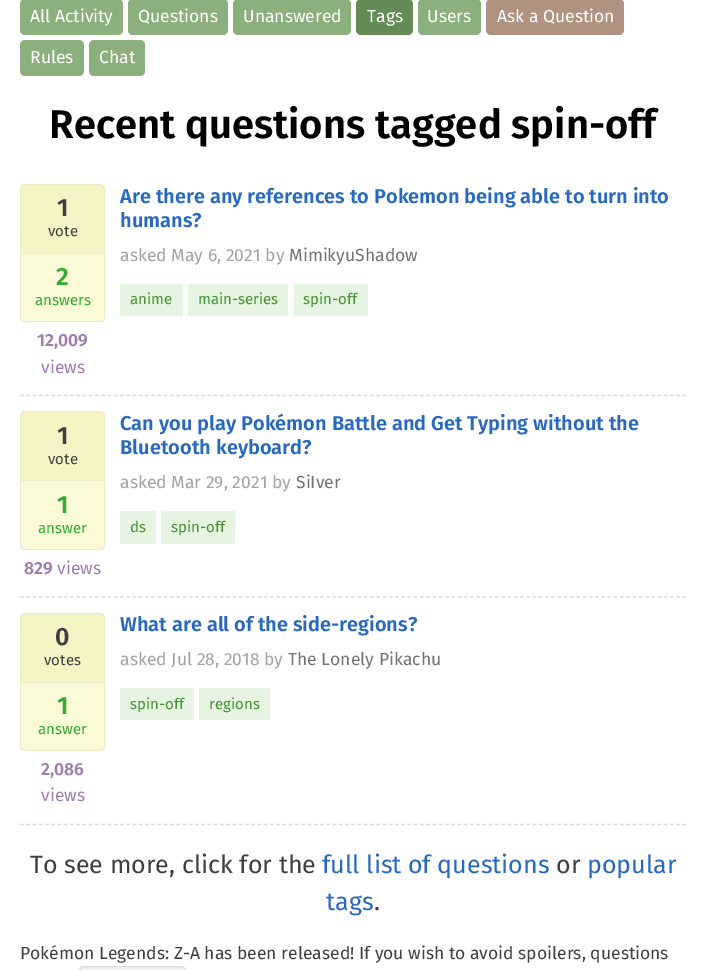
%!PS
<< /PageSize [706 970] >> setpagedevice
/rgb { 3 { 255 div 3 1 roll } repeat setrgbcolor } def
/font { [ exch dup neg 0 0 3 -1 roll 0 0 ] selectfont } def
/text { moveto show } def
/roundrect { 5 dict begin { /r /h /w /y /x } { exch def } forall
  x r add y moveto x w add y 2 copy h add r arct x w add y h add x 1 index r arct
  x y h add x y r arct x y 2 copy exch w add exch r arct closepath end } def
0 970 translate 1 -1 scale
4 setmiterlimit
255 255 255 rgb
0 0 706 970 rectfill
139 176 125 rgb
20 -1 103 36 5 roundrect fill
128 -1 100 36 5 roundrect fill
233 -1 118 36 5 roundrect fill
100 139 85 rgb
356 -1 57 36 5 roundrect fill
139 176 125 rgb
418 -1 63 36 5 roundrect fill
175 146 128 rgb
486 -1 138 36 5 roundrect fill
139 176 125 rgb
20 40 64 36 5 roundrect fill
89 40 56 36 5 roundrect fill
219 219 219 rgb
1.2 setlinewidth
[3.75 2.5] 0 setdash
20 395.5 moveto 666 0 rlineto stroke
245 244 196 rgb
25 184.5 moveto 75 0 rlineto 2.5 0 4.5 2 4.5 4.5 rcurveto 0 64.5 rlineto -84 0 rlineto 0 -64.5 rlineto 0 -2.5 2 -4.5 4.5 -4.5 rcurveto closepath gsave fill grestore
235 234 202 rgb
1 setlinewidth
[] 0 setdash
stroke
250 250 215 rgb
21 254 moveto 83 0 rlineto 0 63 rlineto 0 2 -2 4 -4 4 rcurveto -75 0 rlineto -2 0 -4 -2 -4 -4 rcurveto closepath fill
235 234 202 rgb
20 254 moveto 85 0 rlineto 0 64 rlineto 0 2 -2 4 -5 4 rcurveto -75 0 rlineto -3 0 -5 -2 -5 -4 rcurveto closepath 21 254 moveto 83 0 rlineto 0 64 rlineto 0 2 -2 3 -4 3 rcurveto -75 0 rlineto -2 0 -4 -1 -4 -3 rcurveto closepath eofill
229 245 225 rgb
120 284 63 32 rectfill
188 284 100 32 rectfill
294 284 74 32 rectfill
219 219 219 rgb
1.2 setlinewidth
[3.75 2.5] 0 setdash
20 597 moveto 666 0 rlineto stroke
245 244 196 rgb
25 411.5 moveto 75 0 rlineto 2.5 0 4.5 2 4.5 4.5 rcurveto 0 64.5 rlineto -84 0 rlineto 0 -64.5 rlineto 0 -2.5 2 -4.5 4.5 -4.5 rcurveto closepath gsave fill grestore
235 234 202 rgb
1 setlinewidth
[] 0 setdash
stroke
250 250 215 rgb
21 481 moveto 83 0 rlineto 0 64 rlineto 0 2 -2 4 -4 4 rcurveto -75 0 rlineto -2 0 -4 -2 -4 -4 rcurveto closepath fill
235 234 202 rgb
20 481 moveto 85 0 rlineto 0 64 rlineto 0 3 -2 5 -5 5 rcurveto -75 0 rlineto -3 0 -5 -2 -5 -5 rcurveto closepath 21 481 moveto 83 0 rlineto 0 64 rlineto 0 2 -2 4 -4 4 rcurveto -75 0 rlineto -2 0 -4 -2 -4 -4 rcurveto closepath eofill
229 245 225 rgb
120 511 36 33 rectfill
161 511 74 33 rectfill
219 219 219 rgb
1.2 setlinewidth
[3.75 2.5] 0 setdash
20 824.5 moveto 666 0 rlineto stroke
245 244 196 rgb
25 613.5 moveto 75 0 rlineto 2.5 0 4.5 2 4.5 4.5 rcurveto 0 64.5 rlineto -84 0 rlineto 0 -64.5 rlineto 0 -2.5 2 -4.5 4.5 -4.5 rcurveto closepath gsave fill grestore
235 234 202 rgb
1 setlinewidth
[] 0 setdash
stroke
250 250 215 rgb
21 683 moveto 83 0 rlineto 0 63 rlineto 0 2 -2 4 -4 4 rcurveto -75 0 rlineto -2 0 -4 -2 -4 -4 rcurveto closepath fill
235 234 202 rgb
20 682 moveto 85 0 rlineto 0 64 rlineto 0 3 -2 5 -5 5 rcurveto -75 0 rlineto -3 0 -5 -2 -5 -5 rcurveto closepath 21 682 moveto 83 0 rlineto 0 64 rlineto 0 2 -2 4 -4 4 rcurveto -75 0 rlineto -2 0 -4 -2 -4 -4 rcurveto closepath eofill
229 245 225 rgb
120 688 74 32 rectfill
199 688 71 32 rectfill
240 240 240 rgb
79.5 966.5 106 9 4.5 roundrect gsave fill grestore
219 219 219 rgb
stroke
/FiraSans-Regular 17.5 font
255 255 255 rgb
(All Activity) 30 22 text
(Questions) 138 22 text
(Unanswered) 243 22 text
(Tags) 367 22 text
(Users) 427 22 text
(Ask a Question) 497 22 text
(Rules) 30 63 text
(Chat) 99 63 text
/FiraSans-SemiBold 40 font
0 0 0 rgb
(Recent questions tagged spin-off) 49 138 text
/FiraSans-SemiBold 25 font
64 64 64 rgb
(1) 57 216 text
/FiraSans-Regular 15 font
(vote) 48 236 text
/FiraSans-SemiBold 25 font
51 170 51 rgb
(2) 56 285 text
/FiraSans-Regular 15 font
(answers) 35 305 text
/FiraSans-SemiBold 17.5 font
159 126 172 rgb
(12,009) 37 346 text
/FiraSans-Regular 17.5 font
(views) 41 373 text
/FiraSans-SemiBold 20 font
39 105 190 rgb
(Are there any references to Pokemon being able to turn into) 120 203 text
(humans?) 120 227 text
/FiraSans-Regular 17.5 font
163 163 163 rgb
(asked May 6, 2021 by) 120 261 text
115 115 115 rgb
(MimikyuShadow) 289 261 text
/FiraSans-Regular 15 font
68 146 49 rgb
(anime) 130 304 text
(main-series) 198 304 text
(spin-off) 303 304 text
/FiraSans-SemiBold 25 font
64 64 64 rgb
(1) 57 444 text
/FiraSans-Regular 15 font
(vote) 48 464 text
/FiraSans-SemiBold 25 font
51 170 51 rgb
(1) 57 513 text
/FiraSans-Regular 15 font
(answer) 38 533 text
/FiraSans-SemiBold 17.5 font
159 126 172 rgb
(829) 24 574 text
/FiraSans-Regular 17.5 font
(views) 57 574 text
/FiraSans-SemiBold 20 font
39 105 190 rgb
(Can you play Pokémon Battle and Get Typing without the) 120 430 text
(Bluetooth keyboard?) 120 454 text
/FiraSans-Regular 17.5 font
163 163 163 rgb
(asked Mar 29, 2021 by) 120 488 text
115 115 115 rgb
(SiIver) 296 488 text
/FiraSans-Regular 15 font
68 146 49 rgb
(ds) 130 532 text
(spin-off) 171 532 text
/FiraSans-SemiBold 25 font
64 64 64 rgb
(0) 55 645 text
/FiraSans-Regular 15 font
(votes) 44 665 text
/FiraSans-SemiBold 25 font
51 170 51 rgb
(1) 57 714 text
/FiraSans-Regular 15 font
(answer) 38 734 text
/FiraSans-SemiBold 17.5 font
159 126 172 rgb
(2,086) 41 775 text
/FiraSans-Regular 17.5 font
(views) 41 801 text
/FiraSans-SemiBold 20 font
39 105 190 rgb
(What are all of the side-regions?) 120 631 text
/FiraSans-Regular 17.5 font
163 163 163 rgb
(asked Jul 28, 2018 by) 120 665 text
115 115 115 rgb
(The Lonely Pikachu) 288 665 text
/FiraSans-Regular 15 font
68 146 49 rgb
(spin-off) 130 709 text
(regions) 209 709 text
/FiraSans-Regular 25 font
64 64 64 rgb
(To see more, click for the) 30 873 text
39 105 190 rgb
(full list of questions) 322 873 text
64 64 64 rgb
(or) 556 873 text
39 105 190 rgb
(popular) 587 873 text
(tags) 326 910 text
64 64 64 rgb
(.) 374 910 text
/FiraSans-Regular 17.5 font
(Pokémon Legends: Z-A has been released! If you wish to avoid spoilers, questions) 20 959 text
showpage
